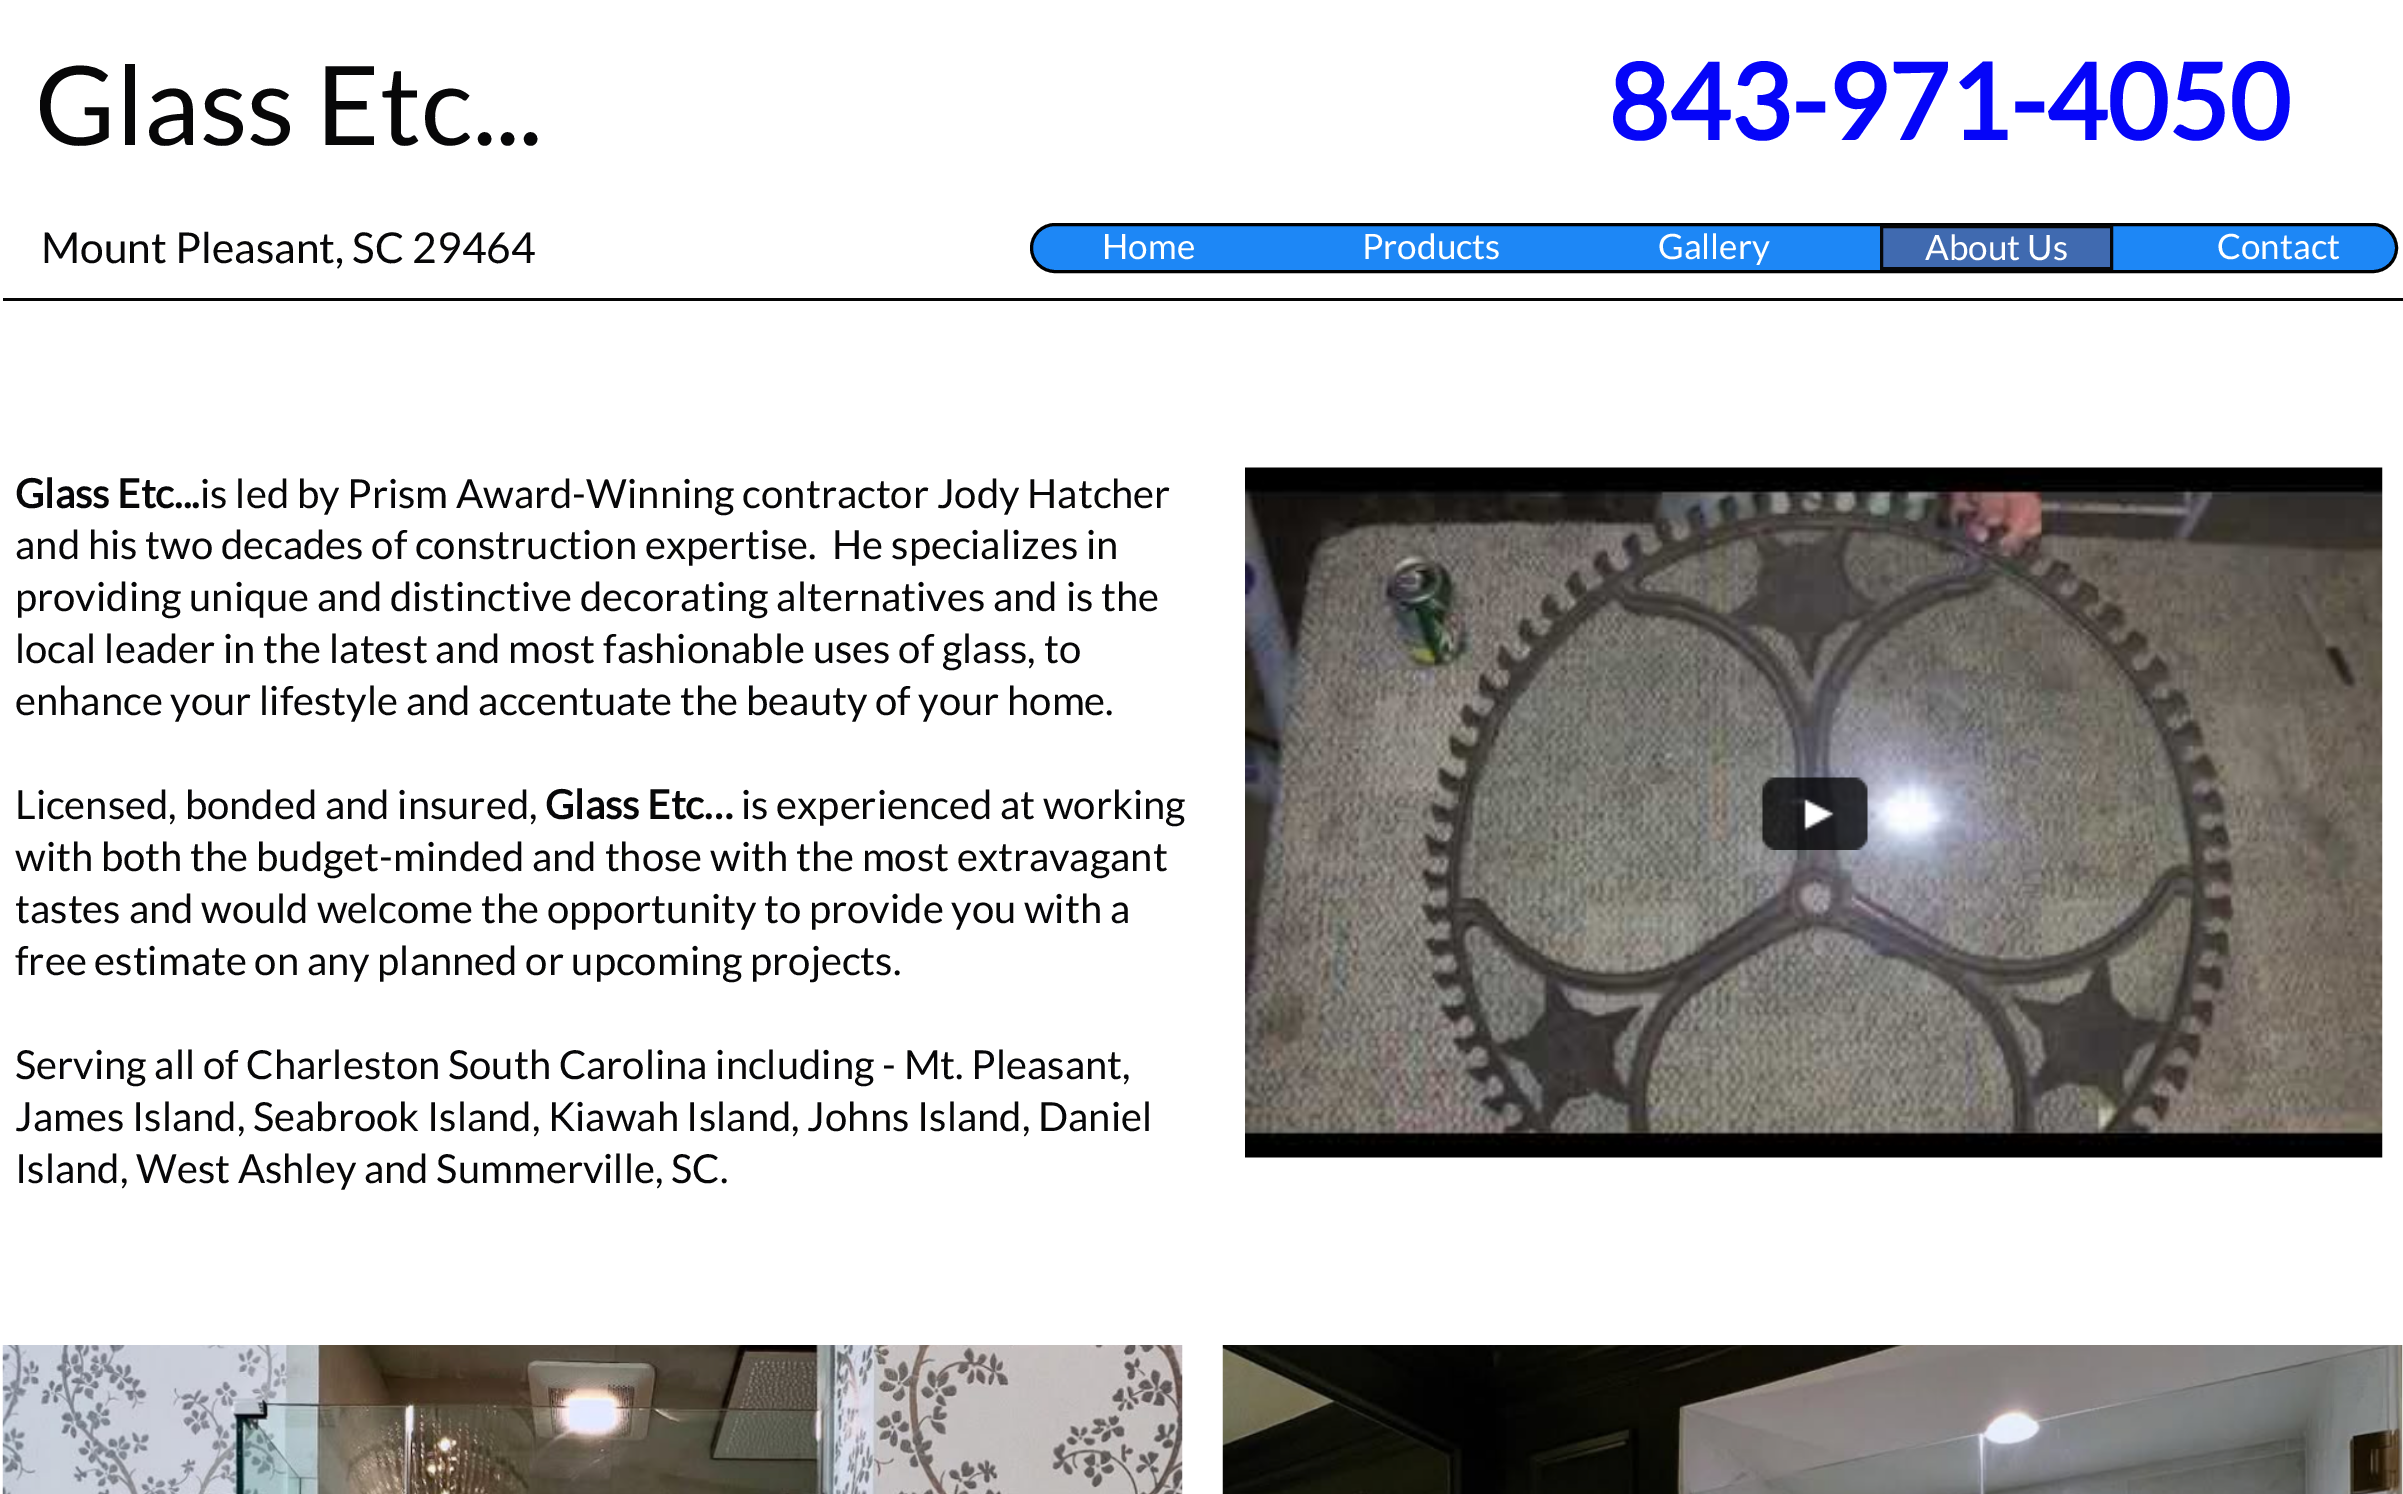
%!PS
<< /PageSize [2403 1494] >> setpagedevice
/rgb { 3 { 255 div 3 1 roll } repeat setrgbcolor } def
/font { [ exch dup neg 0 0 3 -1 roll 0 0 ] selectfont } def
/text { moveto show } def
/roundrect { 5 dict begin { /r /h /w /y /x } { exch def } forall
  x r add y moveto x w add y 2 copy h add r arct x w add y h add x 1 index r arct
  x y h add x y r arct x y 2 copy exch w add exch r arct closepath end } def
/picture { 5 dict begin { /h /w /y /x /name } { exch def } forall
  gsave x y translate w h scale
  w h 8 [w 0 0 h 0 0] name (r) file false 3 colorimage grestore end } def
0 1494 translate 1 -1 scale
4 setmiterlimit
255 255 255 rgb
0 0 2403 1494 rectfill
29 135 246 rgb
1031.5 224.5 1365 47 23.5 roundrect gsave fill grestore
0 0 0 rgb
3 setlinewidth
stroke
64 106 176 rgb
1881.5 226.5 moveto 230 0 rlineto 0 42 rlineto -230 0 rlineto closepath gsave fill grestore
7 7 8 rgb
stroke
5 5 5 rgb
3 298 2400 3 rectfill
(img_01.rgb) 1245 467 1138 691 picture
(img_02.rgb) 1762 777 106 73 picture
(img_03.rgb) 2 1345 1181 149 picture
(img_04.rgb) 1222 1345 1181 149 picture
/Lato-Regular 110 font
7 7 8 rgb
(Glass Etc...) 35 145 text
/Lato-Bold 105 font
5 5 248 rgb
(843-971-4050) 1608 140 text
/Lato-Regular 42.5 font
7 7 8 rgb
(Mount Pleasant, SC 29464) 41 263 text
/Lato-Regular 35 font
255 255 255 rgb
(Home) 1102 259 text
(Products) 1362 259 text
(Gallery) 1658 259 text
(About Us) 1925 260 text
(Contact) 2217 259 text
/Lato-Bold 40 font
7 7 8 rgb
(Glass Etc...) 15 508 text
/Lato-Regular 40 font
(is led by Prism Award-Winning contractor Jody Hatcher) 200 508 text
(and his two decades of construction expertise.  He specializes in) 15 559 text
(providing unique and distinctive decorating alternatives and is the) 15 611 text
(local leader in the latest and most fashionable uses of glass, to) 15 663 text
(enhance your lifestyle and accentuate the beauty of your home.) 15 715 text
(Licensed, bonded and insured,) 15 819 text
/Lato-Bold 40 font
(Glass Etc…) 545 819 text
/Lato-Regular 40 font
(is experienced at working) 741 819 text
(with both the budget-minded and those with the most extravagant) 15 871 text
(tastes and would welcome the opportunity to provide you with a) 15 923 text
(free estimate on any planned or upcoming projects.) 15 975 text
(Serving all of Charleston South Carolina including - Mt. Pleasant,) 15 1079 text
(James Island, Seabrook Island, Kiawah Island, Johns Island, Daniel) 15 1131 text
(Island, West Ashley and Summerville, SC.) 15 1183 text
showpage
